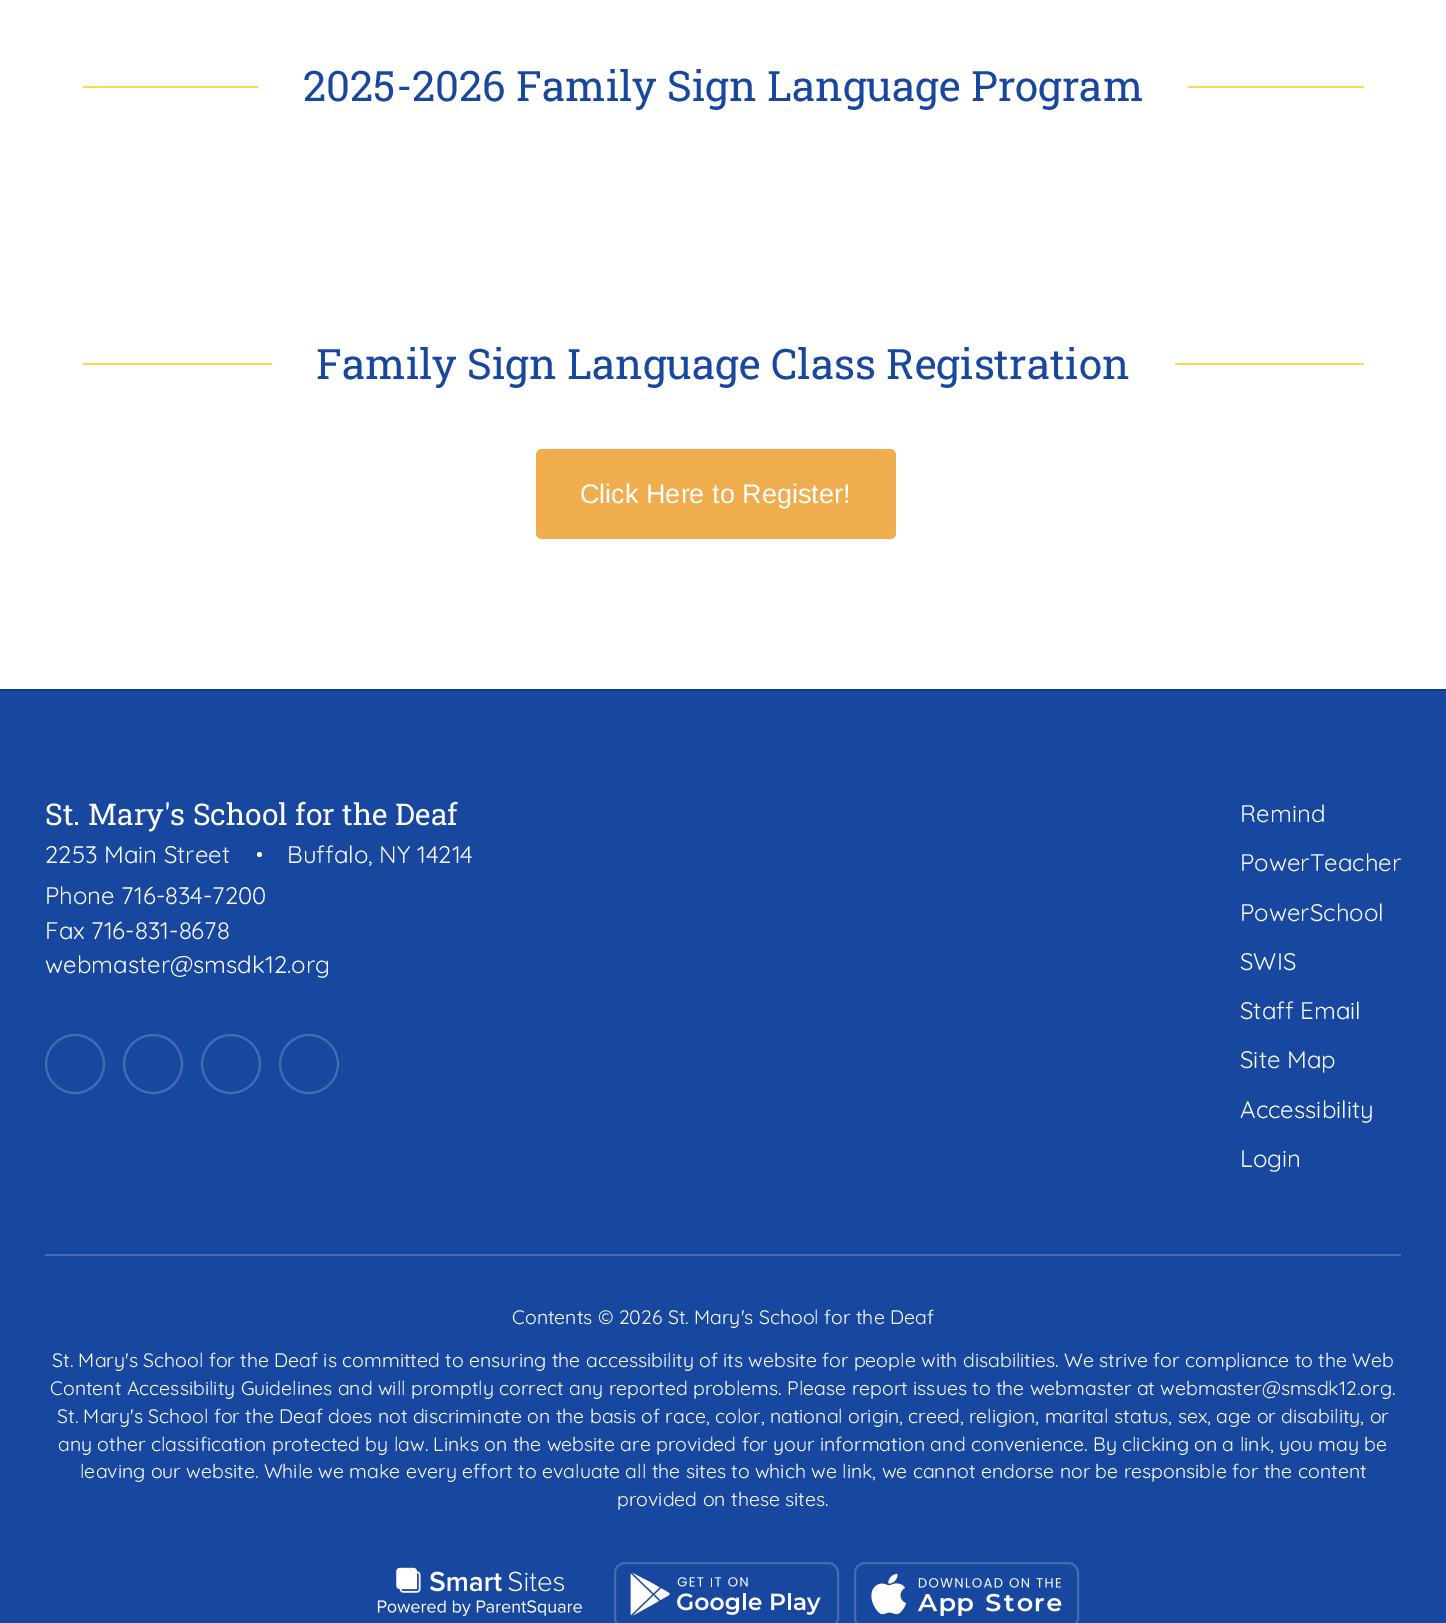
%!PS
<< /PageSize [1446 1623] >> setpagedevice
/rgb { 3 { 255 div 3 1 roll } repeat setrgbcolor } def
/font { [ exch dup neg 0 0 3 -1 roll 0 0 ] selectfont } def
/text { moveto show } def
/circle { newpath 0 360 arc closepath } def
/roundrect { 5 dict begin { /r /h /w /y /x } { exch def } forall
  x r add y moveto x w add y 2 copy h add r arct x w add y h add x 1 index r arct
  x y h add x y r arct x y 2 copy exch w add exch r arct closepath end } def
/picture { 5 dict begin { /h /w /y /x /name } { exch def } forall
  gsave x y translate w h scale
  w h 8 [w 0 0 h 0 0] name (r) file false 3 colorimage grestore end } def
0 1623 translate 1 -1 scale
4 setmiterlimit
255 255 255 rgb
0 0 1446 1623 rectfill
255 214 79 rgb
83 86 175 2 rectfill
1188 86 176 2 rectfill
83 363 189 2 rectfill
1175 363 189 2 rectfill
240 173 78 rgb
536 449 360 90 6 roundrect fill
18 57 126 rgb
0 689 1446 2 rectfill
23 71 158 rgb
0 691 1446 932 rectfill
255 255 255 rgb
259.5 854.5 2.5 circle fill
69 108 177 rgb
2 setlinewidth
75 1064 29 circle stroke
153 1064 29 circle stroke
231 1064 29 circle stroke
309 1064 29 circle stroke
45 1254 1356 2 rectfill
(img_01.rgb) 377 1567 205 49 picture
615 1563 223 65 10 roundrect stroke
(img_02.rgb) 630 1572 191 44 picture
855 1563 223 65 10 roundrect stroke
(img_03.rgb) 871 1573 191 43 picture
/RobotoSlab-Regular 42 font
23 71 158 rgb
(2025-2026 Family Sign Language Program) 303 101 text
(Family Sign Language Class Registration) 316 379 text
/LiberationSans-Regular 27 font
255 255 255 rgb
(Click Here to Register!) 580 503 text
/RobotoSlab-Regular 30 font
(St. Mary's School for the Deaf) 45 825 text
/Quicksand-Light 24 font
(2253 Main Street) 45 863 text
(Buffalo, NY 14214) 287 863 text
(Phone 716-834-7200) 45 904 text
(Fax 716-831-8678) 45 939 text
(webmaster@smsdk12.org) 45 973 text
(Remind) 1240 822 text
(PowerTeacher) 1240 871 text
(PowerSchool) 1240 921 text
(SWIS) 1240 970 text
(Staff Email) 1240 1019 text
(Site Map) 1240 1068 text
(Accessibility) 1240 1118 text
(Login) 1240 1167 text
/Quicksand-Light 19.5 font
(Contents © 2026 St. Mary's School for the Deaf) 512 1324 text
(St. Mary's School for the Deaf is committed to ensuring the accessibility of its website for people with disabilities. We strive for compliance to the Web) 52 1367 text
(Content Accessibility Guidelines and will promptly correct any reported problems. Please report issues to the webmaster at webmaster@smsdk12.org.) 50 1395 text
(St. Mary's School for the Deaf does not discriminate on the basis of race, color, national origin, creed, religion, marital status, sex, age or disability, or) 57 1423 text
(any other classification protected by law. Links on the website are provided for your information and convenience. By clicking on a link, you may be) 58 1451 text
(leaving our website. While we make every effort to evaluate all the sites to which we link, we cannot endorse nor be responsible for the content) 80 1478 text
(provided on these sites.) 617 1506 text
showpage
